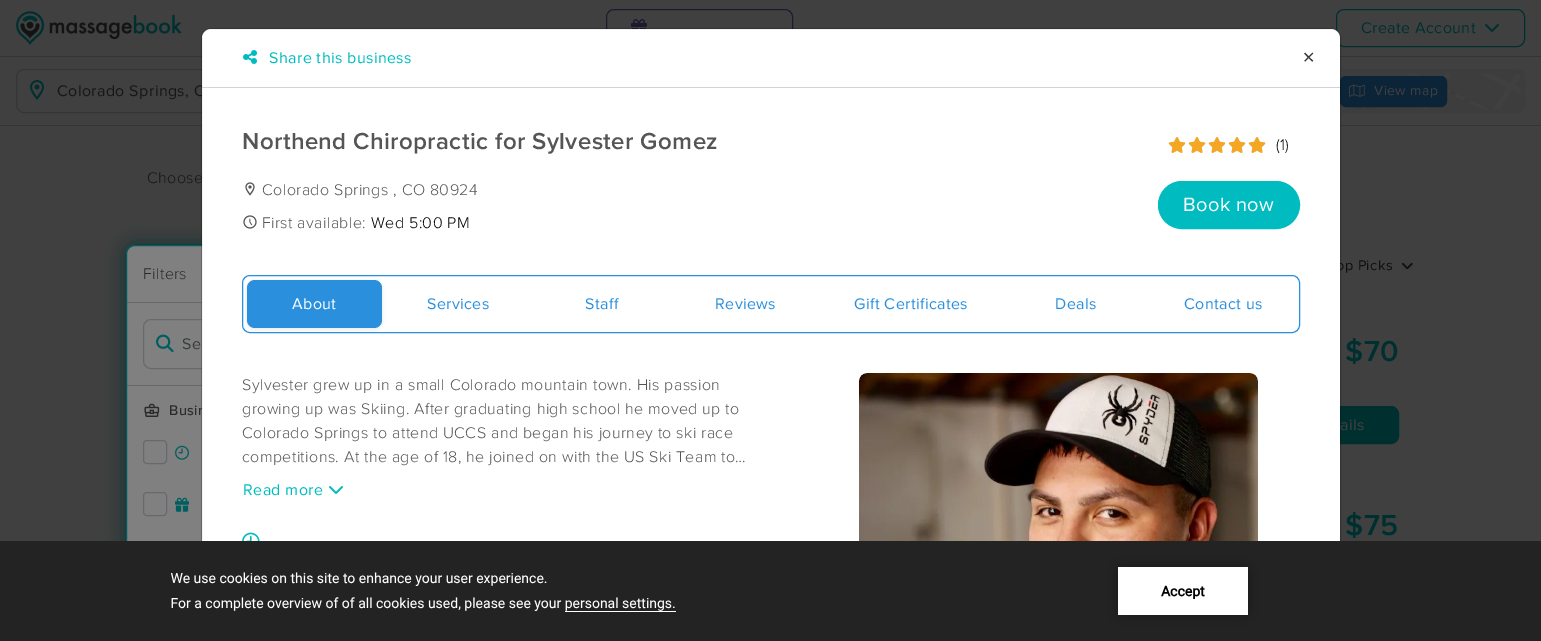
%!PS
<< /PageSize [1541 641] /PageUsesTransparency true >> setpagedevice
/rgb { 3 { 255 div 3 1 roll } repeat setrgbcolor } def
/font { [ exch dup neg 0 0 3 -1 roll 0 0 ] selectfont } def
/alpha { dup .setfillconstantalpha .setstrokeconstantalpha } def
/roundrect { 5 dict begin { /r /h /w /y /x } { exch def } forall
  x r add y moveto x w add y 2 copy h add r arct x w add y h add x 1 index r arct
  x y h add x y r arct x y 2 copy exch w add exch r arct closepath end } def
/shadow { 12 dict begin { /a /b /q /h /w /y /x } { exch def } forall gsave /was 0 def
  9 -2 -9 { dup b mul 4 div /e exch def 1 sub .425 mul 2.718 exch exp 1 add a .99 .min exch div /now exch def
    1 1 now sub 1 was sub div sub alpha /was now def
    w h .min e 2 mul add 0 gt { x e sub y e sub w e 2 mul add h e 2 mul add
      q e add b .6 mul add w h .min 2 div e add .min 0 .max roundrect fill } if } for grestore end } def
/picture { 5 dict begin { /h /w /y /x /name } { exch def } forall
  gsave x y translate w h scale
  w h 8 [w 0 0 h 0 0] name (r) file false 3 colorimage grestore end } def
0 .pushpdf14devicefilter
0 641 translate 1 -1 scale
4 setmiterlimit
64 64 64 rgb
0 0 1541 641 rectfill
52 53 55 rgb
0 56 1541 1 rectfill
(img_01.rgb) 16 11 166 34 picture
31 27 47 rgb
606.5 9.5 186 37 7.5 roundrect stroke
(img_02.rgb) 631 19 16 10 picture
0 47 48 rgb
1336.5 9.5 188 37 7.5 roundrect stroke
(img_03.rgb) 1485 24 14 8 picture
127 246 314 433 8 10 1 shadow
128 128 128 rgb
135 246 moveto 298 0 rlineto 4.5 0 8 3.5 8 8 rcurveto 0 387 rlineto -314 0 rlineto 0 -387 rlineto 0 -4.5 3.5 -8 8 -8 rcurveto closepath fill
103 106 109 rgb
127 302 75 1 rectfill
143.5 319.5 281 49 7.5 roundrect stroke
(img_12.rgb) 156 334 18 19 picture
127 385 75 1 rectfill
(img_13.rgb) 144 403 16 14 picture
(img_14.rgb) 175 445 14 15 picture
(img_15.rgb) 175 497 14 15 picture
0 94 96 rgb
126.5 245.5 315 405 8.5 roundrect stroke
103 106 109 rgb
143.5 440.5 23 23 3.5 roundrect stroke
143.5 492.5 23 23 3.5 roundrect stroke
(img_16.rgb) 1401 262 12 8 picture
0 47 48 rgb
1281.5 406.5 117 37 7.5 roundrect gsave fill grestore
stroke
52 53 55 rgb
0 125 1541 1 rectfill
16.5 69.5 240 43 7.5 roundrect stroke
(img_17.rgb) 30 80 14 20 picture
(img_18.rgb) 1340 73 181 36 picture
61 61 61 rgb
4 setlinewidth
1264 71 259 40 6 roundrect stroke
11 36 56 rgb
1340.5 76.5 106 30 5.5 roundrect gsave fill grestore
1 setlinewidth
stroke
(img_19.rgb) 1349 84 16 13 picture
/ProximaNova-Regular 16 font
0 47 48 rgb
1361 33 moveto 0.4 0 (Create Account) ashow
/ProximaNova-Light 16 font
22 22 22 rgb
147 183 moveto 0.4 0 (Choose) ashow
43 43 43 rgb
143 279 moveto 0.4 0 (Filters) ashow
/ProximaNova-Regular 16 font
54 59 63 rgb
182 349 moveto 0.4 0 (Se) ashow
/ProximaNova-Medium 14.5 font
43 43 43 rgb
169 415 moveto 0.4 0 (Busin) ashow
/ProximaNova-Regular 14.5 font
13 15 16 rgb
1336 270 moveto 0.4 0 (op Picks) ashow
/ProximaNova-SemiBold 30 font
0 47 48 rgb
1345 361 moveto 0.4 0 ($70) ashow
/ProximaNova-Regular 16 font
64 64 64 rgb
1340 430 moveto 0.4 0 (ails) ashow
/ProximaNova-SemiBold 30 font
0 47 48 rgb
1345 535 moveto 0.4 0 ($75) ashow
/ProximaNova-Regular 16 font
22 22 22 rgb
57 96 moveto 0.4 0 (Colorado Springs, C) ashow
255 255 255 rgb
211 29 moveto 1120 0 rlineto 5 0 9 4 9 9 rcurveto 0 603 rlineto -1138 0 rlineto 0 -603 rlineto 0 -5 4 -9 9 -9 rcurveto closepath fill
0.2 alpha
0 0 0 rgb
201.5 28.5 1139 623 9.5 roundrect stroke
1 alpha
(img_11.rgb) 859 373 399 168 picture
/ProximaNova-Light 16 font
85 85 85 rgb
242 462 moveto 0.4 0 (competitions. At the age of 18, he joined on with the US Ski Team to…) ashow
242 438 moveto 0.4 0 (Colorado Springs to attend UCCS and began his journey to ski race) ashow
242 414 moveto 0.4 0 (growing up was Skiing. After graduating high school he moved up to) ashow
242 390 moveto 0.4 0 (Sylvester grew up in a small Colorado mountain town. His passion) ashow
(img_10.rgb) 242 532 18 9 picture
(img_09.rgb) 329 486 14 8 picture
/ProximaNova-Regular 16 font
0 188 192 rgb
243 495 moveto 0.4 0 (Read more) ashow
(img_07.rgb) 1168 137 98 16 picture
(img_08.rgb) 1168 137 98 16 picture
42 144 222 rgb
242.5 275.5 1057 57 7.5 roundrect stroke
1184 309 moveto 0.4 0 (Contact us) ashow
1055 309 moveto 0.4 0 (Deals) ashow
854 309 moveto 0.4 0 (Gift Certificates) ashow
715 309 moveto 0.4 0 (Reviews) ashow
585 309 moveto 0.4 0 (Staff) ashow
427 309 moveto 0.4 0 (Services) ashow
18 18 18 rgb
247 281 135 48 8 2 0.1 shadow
42 144 222 rgb
247 280 135 48 8 roundrect fill
255 255 255 rgb
292 309 moveto 0.4 0 (About) ashow
0 188 192 rgb
1158.5 181.5 141 47 23.5 roundrect gsave fill grestore
stroke
/ProximaNova-Regular 20 font
255 255 255 rgb
1183 211 moveto 0.4 0 (Book now) ashow
/ProximaNova-Light 16 font
0 0 0 rgb
1276 150 moveto 0.4 0 (\(1\)) ashow
371 228 moveto 0.4 0 (Wed 5:00 PM) ashow
85 85 85 rgb
262 228 moveto 0.4 0 (First available:) ashow
(img_06.rgb) 243 215 14 14 picture
262 195 moveto 0.4 0 (Colorado Springs , CO 80924) ashow
(img_05.rgb) 245 182 10 14 picture
/ProximaNova-SemiBold 24 font
242 149 moveto 0.4 0 (Northend Chiropractic for Sylvester Gomez) ashow
/DejaVuSans-Regular 16 font
54 59 63 rgb
1302 63 moveto 0.4 0 (✕) ashow
/ProximaNova-Regular 16 font
0 188 192 rgb
269 63 moveto 0.4 0 (Share this business) ashow
(img_04.rgb) 243 50 14 14 picture
206 212 218 rgb
202 87 1138 1 rectfill
/ProximaNova-Regular 14 font
64 64 64 rgb
1374 95 moveto 0.4 0 (View map) ashow
(img_20.rgb) 0 541 1541 100 picture
.poppdf14devicefilter showpage
